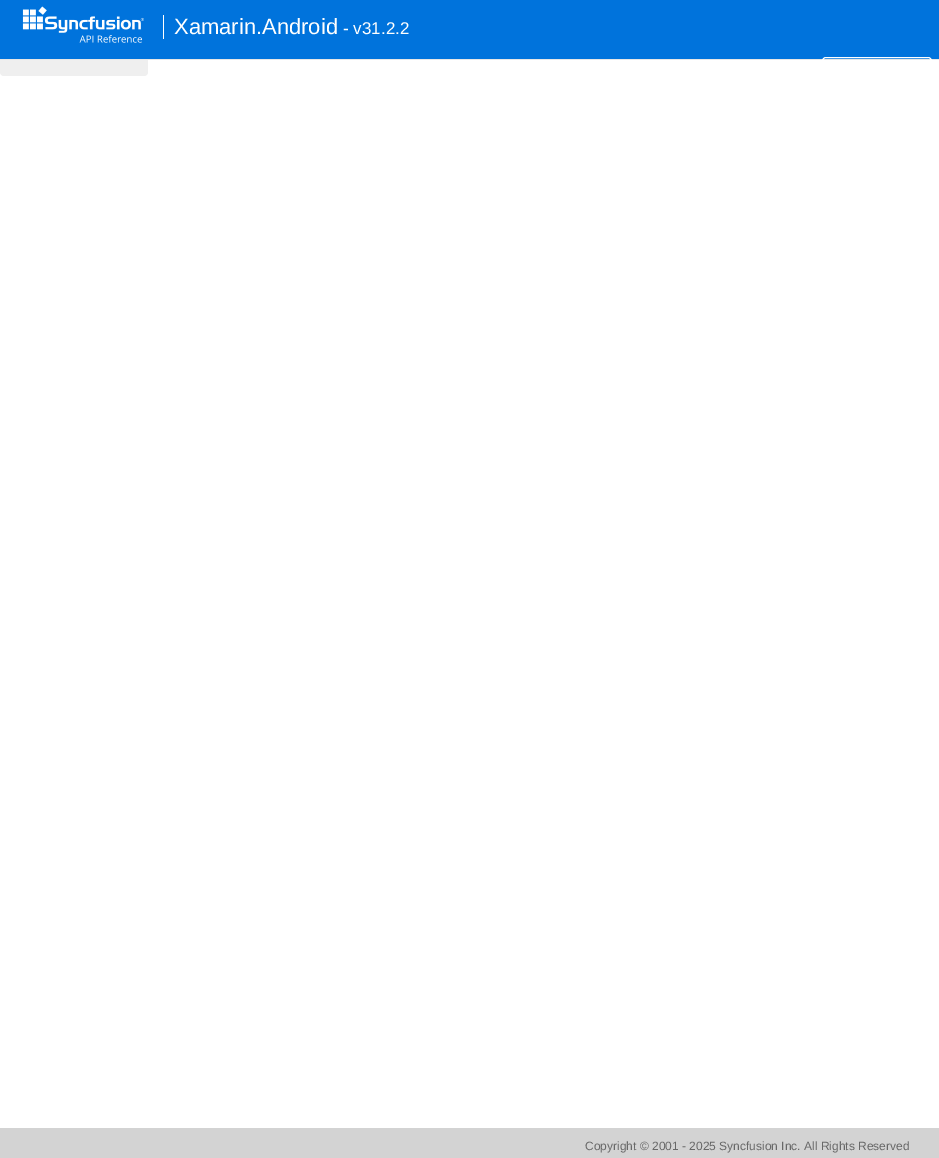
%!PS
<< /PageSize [939 1158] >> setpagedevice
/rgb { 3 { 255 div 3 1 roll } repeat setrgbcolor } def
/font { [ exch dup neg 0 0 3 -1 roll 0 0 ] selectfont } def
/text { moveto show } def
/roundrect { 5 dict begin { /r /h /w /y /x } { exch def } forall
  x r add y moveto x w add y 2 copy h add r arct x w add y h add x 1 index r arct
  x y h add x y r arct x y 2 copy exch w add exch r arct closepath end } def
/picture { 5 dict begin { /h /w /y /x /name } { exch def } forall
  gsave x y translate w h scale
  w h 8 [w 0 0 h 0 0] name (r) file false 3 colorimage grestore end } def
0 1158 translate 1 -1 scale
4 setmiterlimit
255 255 255 rgb
0 0 939 1158 rectfill
239 239 239 rgb
0 0 148 76 4 roundrect fill
0 115 220 rgb
0 0 939 59 rectfill
231 231 231 rgb
0 59 939 1 rectfill
(img_01.rgb) 22 6 122 37 picture
255 255 255 rgb
163 15 1 24 rectfill
822.5 57.5 109 36 3.5 roundrect stroke
211 211 211 rgb
0 1128 939 30 rectfill
/LiberationSans-Regular 22 font
255 255 255 rgb
(Xamarin.Android) 174 34 text
/LiberationSans-Regular 17 font
(- v31.2.2) 343 34 text
/LiberationSans-Regular 12 font
104 104 104 rgb
(Copyright © 2001 - 2025 Syncfusion Inc. All Rights Reserved) 585 1150 text
showpage
